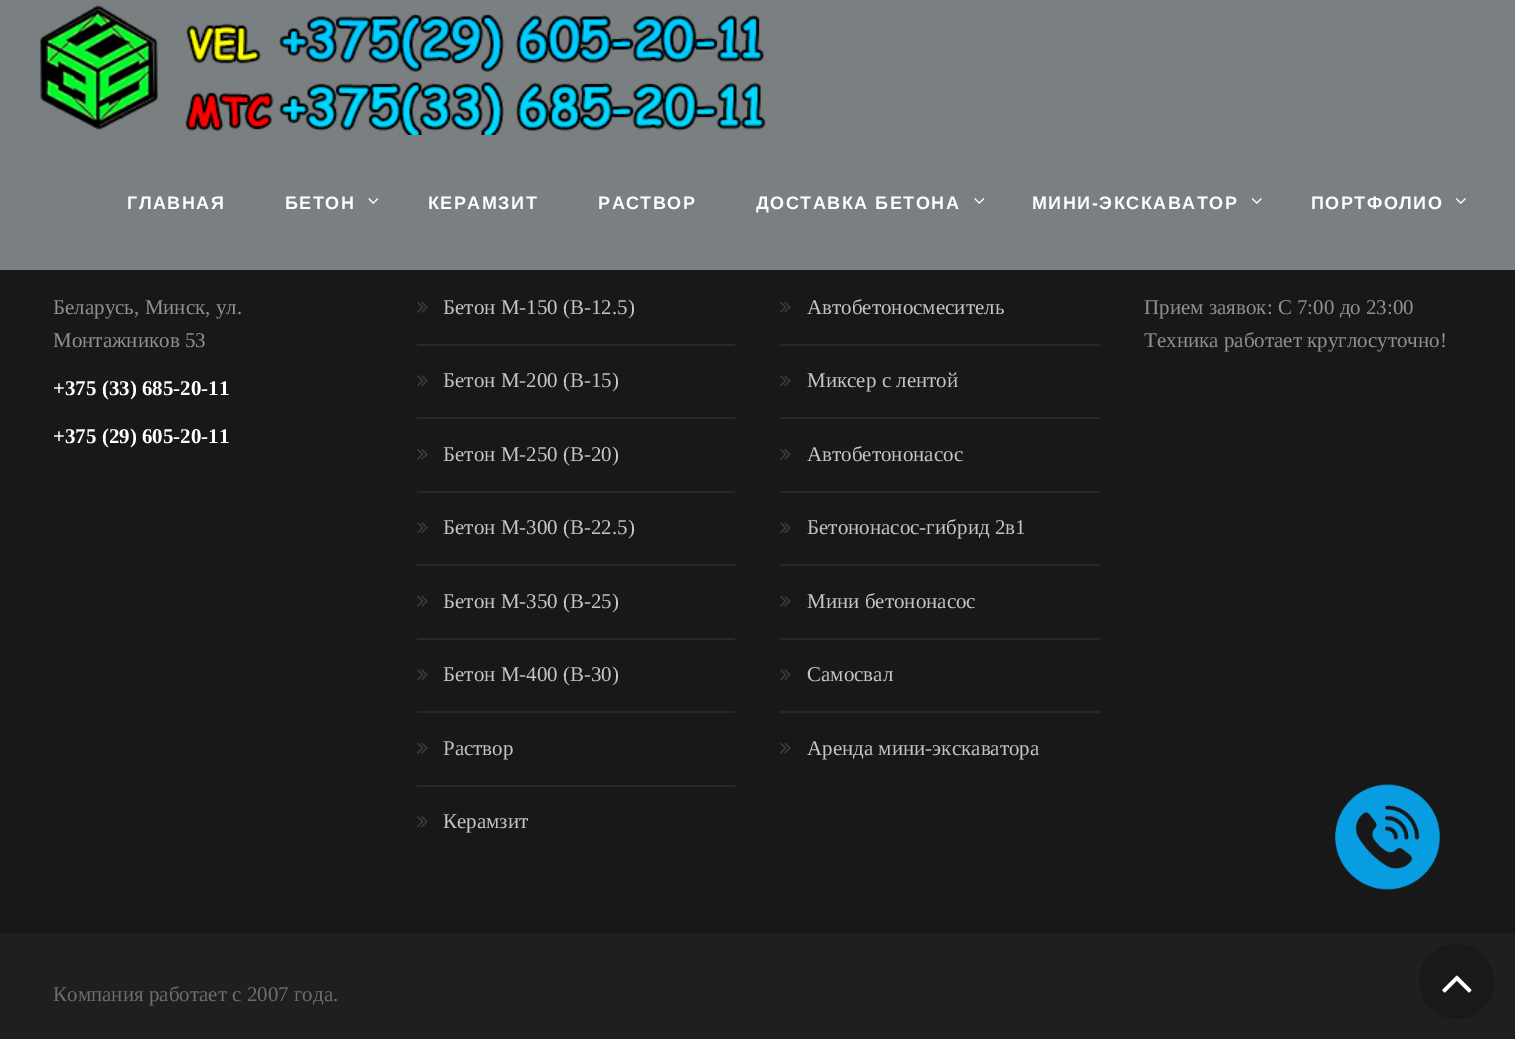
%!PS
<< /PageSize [1515 1039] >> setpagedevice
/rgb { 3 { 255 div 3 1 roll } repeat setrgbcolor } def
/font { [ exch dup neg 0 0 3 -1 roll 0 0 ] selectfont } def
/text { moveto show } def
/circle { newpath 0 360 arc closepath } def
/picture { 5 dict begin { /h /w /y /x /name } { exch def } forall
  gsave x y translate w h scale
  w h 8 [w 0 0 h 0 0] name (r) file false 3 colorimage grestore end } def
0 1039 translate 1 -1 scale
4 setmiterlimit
24 24 24 rgb
0 0 1515 1039 rectfill
122 128 129 rgb
0 0 1515 270 rectfill
(img_01.rgb) 40 5 726 130 picture
(img_02.rgb) 368 198 11 6 picture
(img_02.rgb) 974 198 11 6 picture
(img_03.rgb) 1251 198 11 6 picture
(img_03.rgb) 1455 198 11 6 picture
(img_04.rgb) 417 302 11 11 picture
40 40 40 rgb
417 344 318 2 rectfill
(img_05.rgb) 417 375 11 11 picture
417 417 318 2 rectfill
(img_04.rgb) 417 449 11 11 picture
417 491 318 2 rectfill
(img_05.rgb) 417 522 11 11 picture
417 564 318 2 rectfill
(img_04.rgb) 417 596 11 11 picture
417 638 318 2 rectfill
(img_05.rgb) 417 669 11 11 picture
417 711 318 2 rectfill
(img_04.rgb) 417 743 11 11 picture
417 785 318 2 rectfill
(img_05.rgb) 417 816 11 11 picture
(img_04.rgb) 780 302 11 11 picture
780 344 320 2 rectfill
(img_05.rgb) 780 375 11 11 picture
780 417 320 2 rectfill
(img_04.rgb) 780 449 11 11 picture
780 491 320 2 rectfill
(img_05.rgb) 780 522 11 11 picture
780 564 320 2 rectfill
(img_04.rgb) 780 596 11 11 picture
780 638 320 2 rectfill
(img_05.rgb) 780 669 11 11 picture
780 711 320 2 rectfill
(img_04.rgb) 780 743 11 11 picture
31 31 31 rgb
0 933 1515 106 rectfill
(img_06.rgb) 1335 784 105 106 picture
25 25 25 rgb
1456.5 981.5 37.5 circle fill
(img_07.rgb) 1442 975 30 18 picture
/Arimo-Bold 18 font
255 255 255 rgb
127 209 moveto 1.5 0 (ГЛАВНАЯ) ashow
285 209 moveto 1.5 0 (БЕТОН) ashow
428 209 moveto 1.5 0 (КЕРАМЗИТ) ashow
598 209 moveto 1.5 0 (РАСТВОР) ashow
756 209 moveto 1.5 0 (ДОСТАВКА БЕТОНА) ashow
1032 209 moveto 1.5 0 (МИНИ-ЭКСКАВАТОР) ashow
1311 209 moveto 1.5 0 (ПОРТФОЛИО) ashow
/LiberationSerif-Regular 21 font
144 144 144 rgb
(Беларусь, Минск, ул.) 53 314 text
(Монтажников 53) 53 347 text
/LiberationSerif-Bold 21 font
255 255 255 rgb
(+375 \(33\) 685-20-11) 53 395 text
(+375 \(29\) 605-20-11) 53 443 text
/LiberationSerif-Regular 21 font
197 197 197 rgb
(Бетон М-150 \(B-12.5\)) 443 314 text
(Бетон М-200 \(B-15\)) 443 387 text
(Бетон М-250 \(B-20\)) 443 461 text
(Бетон М-300 \(B-22.5\)) 443 534 text
(Бетон М-350 \(B-25\)) 443 608 text
(Бетон М-400 \(B-30\)) 443 681 text
(Раствор) 443 755 text
(Керамзит) 443 828 text
(Автобетоносмеситель) 807 314 text
(Миксер с лентой) 807 387 text
(Автобетононасос) 807 461 text
(Бетононасос-гибрид 2в1) 807 534 text
(Мини бетононасос) 807 608 text
(Самосвал) 807 681 text
(Аренда мини-экскаватора) 807 755 text
144 144 144 rgb
(Прием заявок: С 7:00 до 23:00) 1144 314 text
(Техника работает круглосуточно!) 1144 347 text
109 109 109 rgb
(Компания работает с 2007 года.) 53 1001 text
showpage
